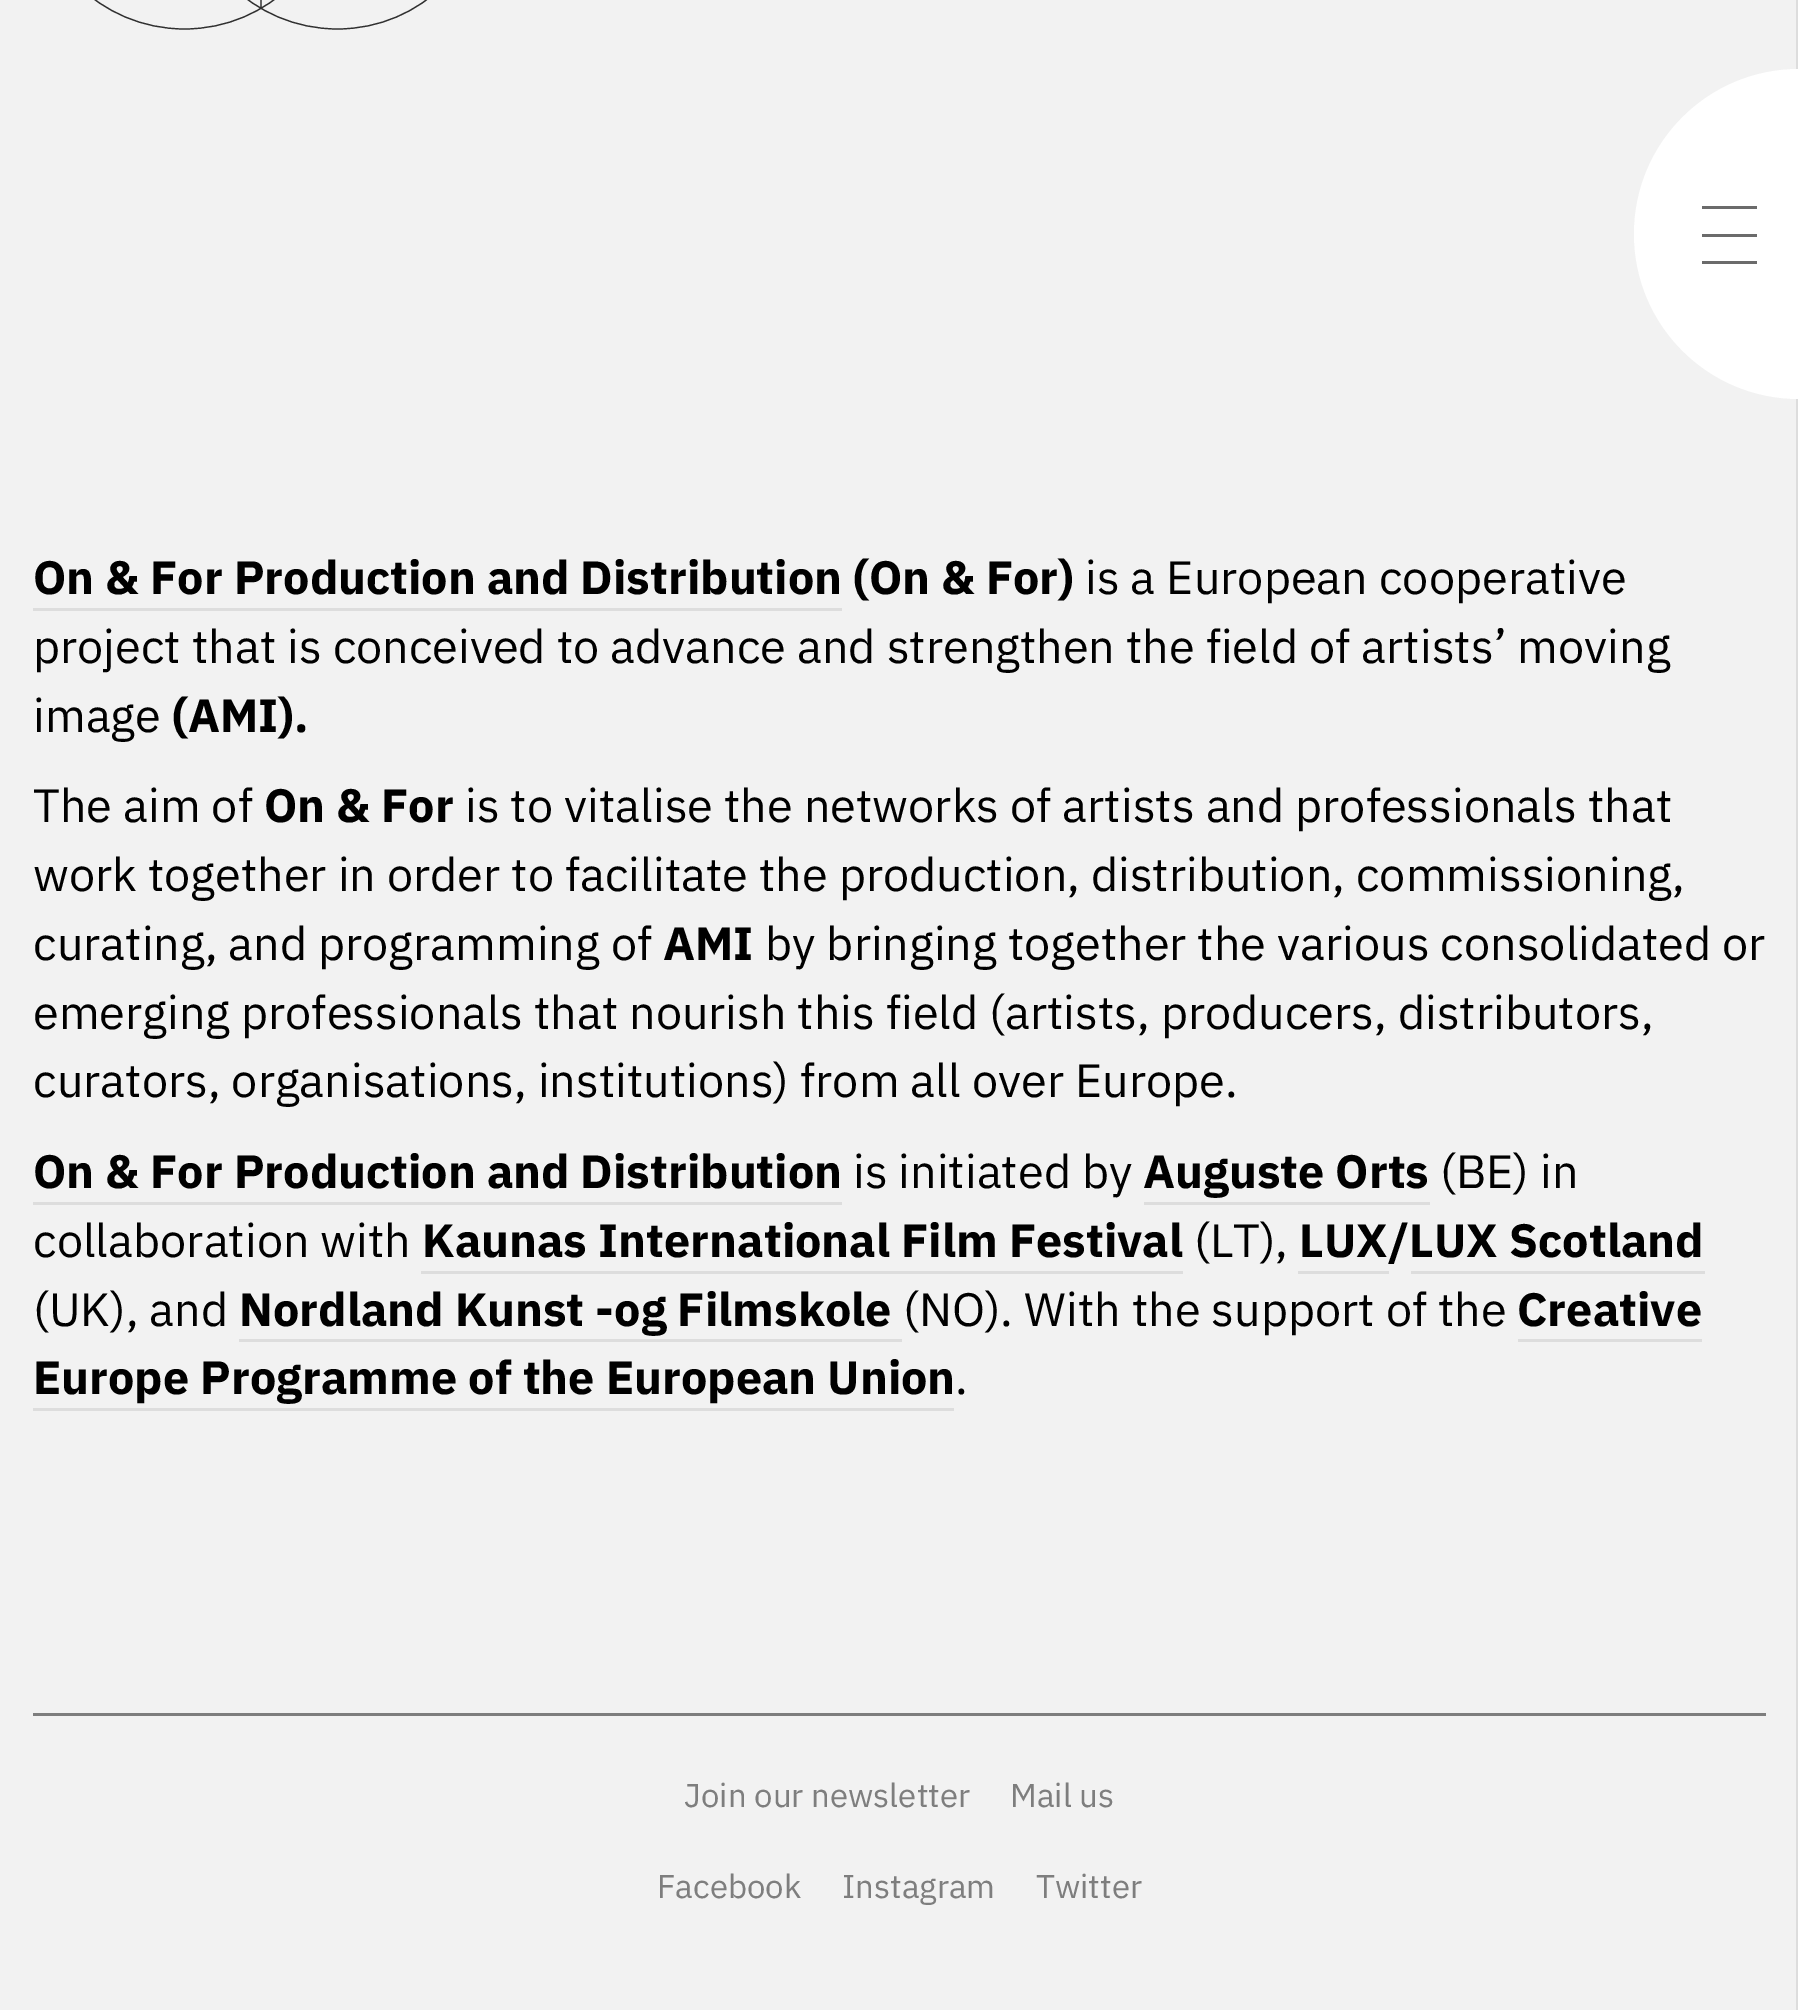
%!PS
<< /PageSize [1798 2010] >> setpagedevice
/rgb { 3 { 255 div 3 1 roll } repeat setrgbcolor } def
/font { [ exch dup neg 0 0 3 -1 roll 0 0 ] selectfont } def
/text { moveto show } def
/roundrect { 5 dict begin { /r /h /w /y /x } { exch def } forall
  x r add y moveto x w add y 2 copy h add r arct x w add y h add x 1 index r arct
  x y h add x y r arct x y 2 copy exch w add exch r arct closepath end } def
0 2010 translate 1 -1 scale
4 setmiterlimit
242 242 242 rgb
0 0 1798 2010 rectfill
48 48 48 rgb
1.2 setlinewidth
184.5 29 moveto 84 0 152 -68 152 -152 rcurveto 0 -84 -68 -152 -152 -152 rcurveto -84 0 -152 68 -152 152 rcurveto 0 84 68 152 152 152 rcurveto closepath 337.5 29 moveto 83.5 0 151.5 -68 151.5 -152 rcurveto 0 -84 -68 -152 -151.5 -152 rcurveto -84 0 -152 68 -152 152 rcurveto 0 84 68 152 152 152 rcurveto closepath 261 -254 moveto 0 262.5 rlineto 260.5 -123 moveto 229 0 rlineto stroke
221 221 221 rgb
1796 0 2 2010 rectfill
255 255 255 rgb
1634 69 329 330 165 roundrect fill
107 107 107 rgb
1702 234 55 3 rectfill
1702 206 55 3 rectfill
1702 261 55 3 rectfill
221 221 221 rgb
33 608 809 3 rectfill
33 1202 809 3 rectfill
1144 1202 286 3 rectfill
421 1271 762 3 rectfill
1298 1271 91 3 rectfill
1411 1271 294 3 rectfill
239 1339 663 3 rectfill
1518 1339 184 3 rectfill
33 1408 921 3 rectfill
126 126 126 rgb
33 1713 1733 3 rectfill
/IBMPlexSans-Bold 46.75 font
0 0 0 rgb
(On & For Production and Distribution \(On & For\)) 33 594 text
/IBMPlexSans-Regular 46.75 font
(is a European cooperative) 1085 594 text
(project that is conceived to advance and strengthen the field of artists’ moving) 33 663 text
(image) 33 732 text
/IBMPlexSans-Bold 46.75 font
(\(AMI\).) 172 732 text
/IBMPlexSans-Regular 46.75 font
(The aim of) 33 822 text
/IBMPlexSans-Bold 46.75 font
(On & For) 264 822 text
/IBMPlexSans-Regular 46.75 font
(is to vitalise the networks of artists and professionals that) 465 822 text
(work together in order to facilitate the production, distribution, commissioning,) 33 891 text
(curating, and programming of) 33 960 text
/IBMPlexSans-Bold 46.75 font
(AMI) 663 960 text
/IBMPlexSans-Regular 46.75 font
(by bringing together the various consolidated or) 765 960 text
(emerging professionals that nourish this field \(artists, producers, distributors,) 33 1029 text
(curators, organisations, institutions\) from all over Europe.) 33 1097 text
/IBMPlexSans-Bold 46.75 font
(On & For Production and Distribution) 33 1188 text
/IBMPlexSans-Regular 46.75 font
(is initiated by) 853 1188 text
/IBMPlexSans-Bold 46.75 font
(Auguste Orts) 1143 1188 text
/IBMPlexSans-Regular 46.75 font
(\(BE\) in) 1440 1188 text
(collaboration with) 33 1257 text
/IBMPlexSans-Bold 46.75 font
(Kaunas International Film Festival) 422 1257 text
/IBMPlexSans-Regular 46.75 font
(\(LT\),) 1194 1257 text
/IBMPlexSans-Bold 46.75 font
(LUX/LUX Scotland) 1299 1257 text
/IBMPlexSans-Regular 46.75 font
(\(UK\), and) 33 1326 text
/IBMPlexSans-Bold 46.75 font
(Nordland Kunst -og Filmskole) 239 1326 text
/IBMPlexSans-Regular 46.75 font
(\(NO\). With the support of the) 903 1326 text
/IBMPlexSans-Bold 46.75 font
(Creative) 1517 1326 text
(Europe Programme of the European Union) 33 1394 text
/IBMPlexSans-Regular 46.75 font
(.) 955 1394 text
/IBMPlexSans-Regular 33 font
126 126 126 rgb
(Join our newsletter) 684 1807 text
(Mail us) 1010 1807 text
(Facebook) 657 1898 text
(Instagram) 842 1898 text
(Twitter) 1036 1898 text
showpage
